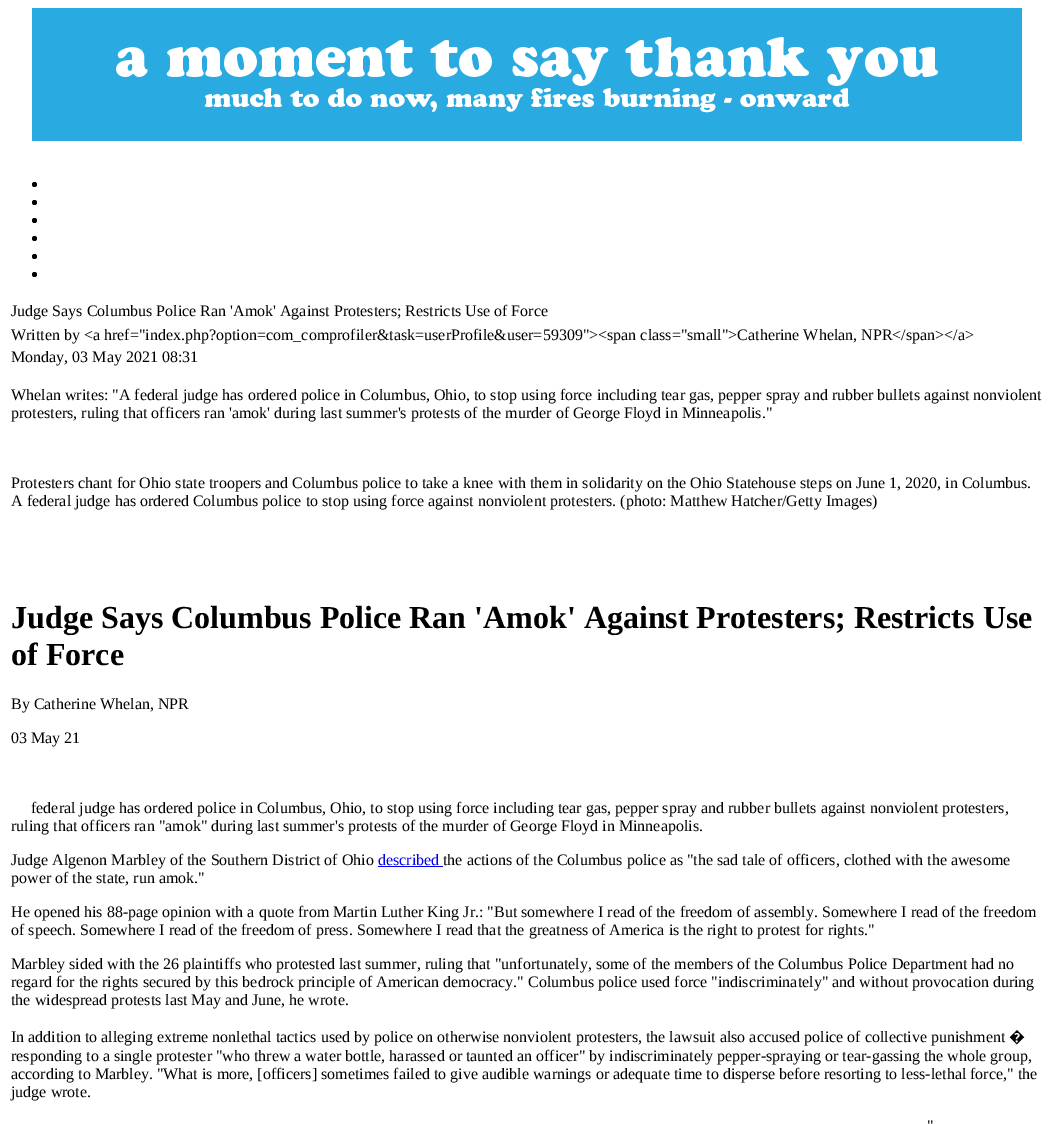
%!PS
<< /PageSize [1053 1124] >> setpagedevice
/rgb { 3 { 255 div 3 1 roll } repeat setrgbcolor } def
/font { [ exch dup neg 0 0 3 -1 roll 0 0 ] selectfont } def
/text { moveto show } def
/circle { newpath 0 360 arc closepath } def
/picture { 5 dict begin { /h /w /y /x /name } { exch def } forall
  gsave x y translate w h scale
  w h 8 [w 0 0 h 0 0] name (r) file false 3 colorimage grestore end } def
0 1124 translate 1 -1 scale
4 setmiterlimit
255 255 255 rgb
0 0 1053 1124 rectfill
(img_01.rgb) 32 8 990 133 picture
0 0 0 rgb
34.5 184.5 2.5 circle fill
34.5 202.5 2.5 circle fill
34.5 220.5 2.5 circle fill
34.5 238.5 2.5 circle fill
34.5 256.5 2.5 circle fill
34.5 274.5 2.5 circle fill
0 0 238 rgb
378 866 65 1 rectfill
/LiberationSerif-Regular 16 font
0 0 0 rgb
(Judge Says Columbus Police Ran 'Amok' Against Protesters; Restricts Use of Force) 11 316 text
(Written by <a href="index.php?option=com_comprofiler&task=userProfile&user=59309"><span class="small">Catherine Whelan, NPR</span></a>) 11 340 text
(Monday, 03 May 2021 08:31) 11 362 text
(Whelan writes: "A federal judge has ordered police in Columbus, Ohio, to stop using force including tear gas, pepper spray and rubber bullets against nonviolent) 11 400 text
(protesters, ruling that officers ran 'amok' during last summer's protests of the murder of George Floyd in Minneapolis.") 11 418 text
(Protesters chant for Ohio state troopers and Columbus police to take a knee with them in solidarity on the Ohio Statehouse steps on June 1, 2020, in Columbus.) 11 488 text
(A federal judge has ordered Columbus police to stop using force against nonviolent protesters. \(photo: Matthew Hatcher/Getty Images\)) 11 506 text
/LiberationSerif-Bold 32 font
(Judge Says Columbus Police Ran 'Amok' Against Protesters; Restricts Use) 11 628 text
(of Force) 11 665 text
/LiberationSerif-Regular 16 font
(By Catherine Whelan, NPR) 11 709 text
(03 May 21) 11 743 text
(federal judge has ordered police in Columbus, Ohio, to stop using force including tear gas, pepper spray and rubber bullets against nonviolent protesters,) 31 813 text
(ruling that officers ran "amok" during last summer's protests of the murder of George Floyd in Minneapolis.) 11 831 text
(Judge Algenon Marbley of the Southern District of Ohio) 11 865 text
0 0 238 rgb
(described) 378 865 text
0 0 0 rgb
(the actions of the Columbus police as "the sad tale of officers, clothed with the awesome) 443 865 text
(power of the state, run amok.") 11 883 text
(He opened his 88-page opinion with a quote from Martin Luther King Jr.: "But somewhere I read of the freedom of assembly. Somewhere I read of the freedom) 11 917 text
(of speech. Somewhere I read of the freedom of press. Somewhere I read that the greatness of America is the right to protest for rights.") 11 935 text
(Marbley sided with the 26 plaintiffs who protested last summer, ruling that "unfortunately, some of the members of the Columbus Police Department had no) 11 969 text
(regard for the rights secured by this bedrock principle of American democracy." Columbus police used force "indiscriminately" and without provocation during) 11 987 text
(the widespread protests last May and June, he wrote.) 11 1005 text
(In addition to alleging extreme nonlethal tactics used by police on otherwise nonviolent protesters, the lawsuit also accused police of collective punishment) 11 1042 text
/NotoSans-Regular 16 font
(�) 1009 1042 text
/LiberationSerif-Regular 16 font
(responding to a single protester "who threw a water bottle, harassed or taunted an officer" by indiscriminately pepper-spraying or tear-gassing the whole group,) 11 1061 text
(according to Marbley. "What is more, [officers] sometimes failed to give audible warnings or adequate time to disperse before resorting to less-lethal force," the) 11 1079 text
(judge wrote.) 11 1097 text
(") 927 1131 text
showpage
